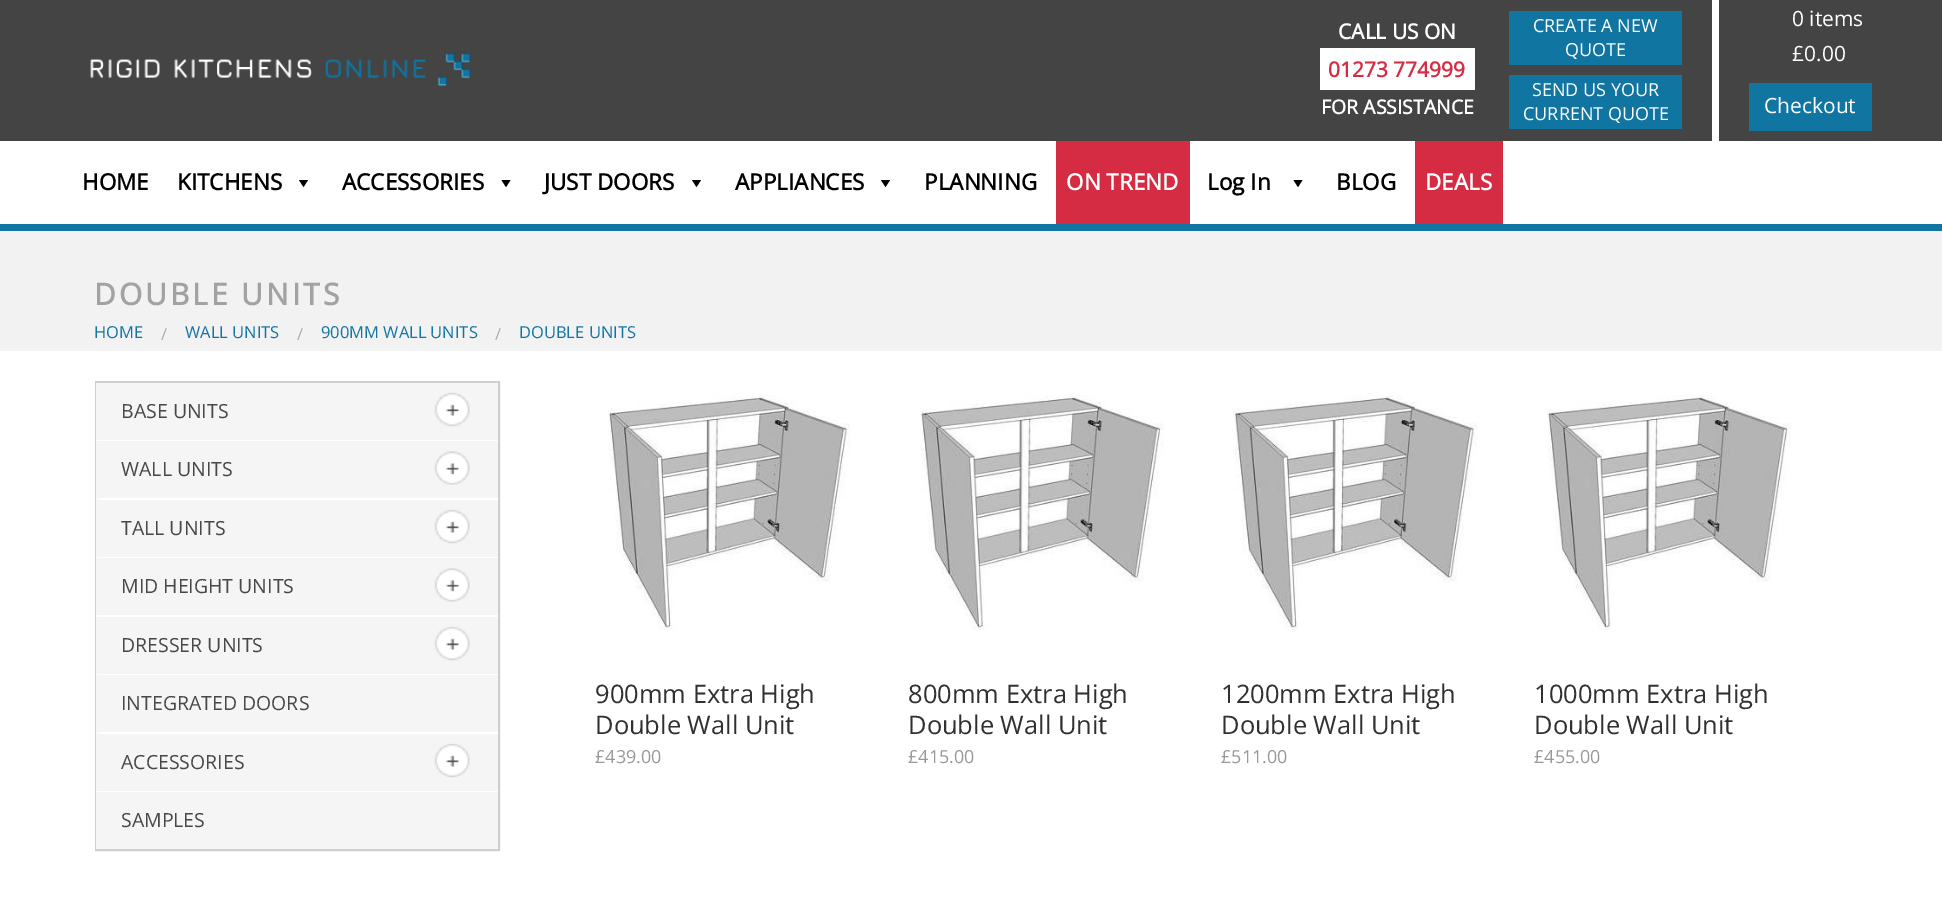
%!PS
<< /PageSize [1942 910] >> setpagedevice
/rgb { 3 { 255 div 3 1 roll } repeat setrgbcolor } def
/font { [ exch dup neg 0 0 3 -1 roll 0 0 ] selectfont } def
/text { moveto show } def
/roundrect { 5 dict begin { /r /h /w /y /x } { exch def } forall
  x r add y moveto x w add y 2 copy h add r arct x w add y h add x 1 index r arct
  x y h add x y r arct x y 2 copy exch w add exch r arct closepath end } def
/picture { 5 dict begin { /h /w /y /x /name } { exch def } forall
  gsave x y translate w h scale
  w h 8 [w 0 0 h 0 0] name (r) file false 3 colorimage grestore end } def
0 910 translate 1 -1 scale
4 setmiterlimit
255 255 255 rgb
0 0 1942 910 rectfill
68 68 68 rgb
0 0 1942 141 rectfill
(img_01.rgb) 90 52 381 34 picture
255 255 255 rgb
1320 48 155 42 rectfill
17 117 162 rgb
1509 11 173 54 rectfill
1509 75 173 54 rectfill
255 255 255 rgb
1712 0 7 141 rectfill
17 117 162 rgb
1749 83 123 48 rectfill
0 224 1942 7 rectfill
0 0 0 rgb
308 180 moveto -4.5 7 rlineto -4.5 -7 rlineto closepath fill
510.5 180 moveto -4.5 7 rlineto -4.5 -7 rlineto closepath fill
701 180 moveto -4.5 7 rlineto -4.5 -7 rlineto closepath fill
890 180 moveto -4.5 7 rlineto -4.5 -7 rlineto closepath fill
213 44 67 rgb
1056 141 134 83 rectfill
0 0 0 rgb
1302.5 180 moveto -4.5 7 rlineto -4.5 -7 rlineto closepath fill
213 44 67 rgb
1415 141 88 83 rectfill
242 242 242 rgb
0 231 1942 120 rectfill
207 207 207 rgb
2 setlinewidth
96 382 403 468 rectstroke
245 245 245 rgb
96 383 402 57 rectfill
255 255 255 rgb
96 440 1 1 rectfill
(img_02.rgb) 434 392 36 35 picture
245 245 245 rgb
96 441 402 57 rectfill
255 255 255 rgb
96 498 1 2 rectfill
(img_03.rgb) 434 451 36 34 picture
245 245 245 rgb
96 500 402 57 rectfill
255 255 255 rgb
96 557 1 1 rectfill
(img_02.rgb) 434 509 36 35 picture
245 245 245 rgb
96 558 402 57 rectfill
255 255 255 rgb
96 615 1 2 rectfill
(img_03.rgb) 434 568 36 34 picture
245 245 245 rgb
96 617 402 57 rectfill
255 255 255 rgb
96 674 1 1 rectfill
(img_02.rgb) 434 626 36 35 picture
245 245 245 rgb
96 675 402 57 rectfill
255 255 255 rgb
96 732 1 2 rectfill
245 245 245 rgb
96 734 402 57 rectfill
255 255 255 rgb
96 791 1 1 rectfill
(img_02.rgb) 434 743 36 35 picture
245 245 245 rgb
96 792 402 57 rectfill
(img_04.rgb) 608 395 242 235 picture
(img_05.rgb) 920 395 244 235 picture
(img_06.rgb) 1233 395 244 235 picture
(img_07.rgb) 1547 395 244 235 picture
/OpenSans-Bold 21 font
255 255 255 rgb
(CALL US ON) 1338 39 text
213 44 67 rgb
(01273 774999) 1328 77 text
/OpenSans-Bold 19.5 font
255 255 255 rgb
(FOR ASSISTANCE) 1321 114 text
/OpenSans-Regular 18 font
(CREATE A NEW) 1533 32 text
(QUOTE) 1565 56 text
(SEND US YOUR) 1532 96 text
(CURRENT QUOTE) 1523 120 text
/OpenSans-Regular 21 font
(0 items) 1792 26 text
(£0.00) 1792 61 text
(Checkout) 1764 113 text
/OpenSans-Bold 22.5 font
0 0 0 rgb
(HOME) 82 190 text
(KITCHENS) 177 190 text
(ACCESSORIES) 342 190 text
(JUST DOORS) 544 190 text
(APPLIANCES) 735 190 text
(PLANNING) 924 190 text
255 255 255 rgb
(ON TREND) 1066 190 text
0 0 0 rgb
(Log In) 1207 190 text
(BLOG) 1336 190 text
255 255 255 rgb
(DEALS) 1425 190 text
/OpenSans-Bold 30 font
162 162 162 rgb
94 305 moveto 3 0 (DOUBLE UNITS) ashow
gsave
95 324 1755 17 5 roundrect clip newpath
/OpenSans-Regular 16.5 font
17 117 162 rgb
(HOME) 94 338 text
grestore
/OpenSans-Regular 16.5 font
170 170 170 rgb
(/) 161 340 text
17 117 162 rgb
(WALL UNITS) 185 338 text
170 170 170 rgb
(/) 297 340 text
17 117 162 rgb
(900MM WALL UNITS) 321 338 text
170 170 170 rgb
(/) 495 340 text
17 117 162 rgb
(DOUBLE UNITS) 519 338 text
/OpenSans-Regular 19.5 font
72 72 72 rgb
(BASE UNITS) 121 418 text
(WALL UNITS) 121 476 text
(TALL UNITS) 121 535 text
(MID HEIGHT UNITS) 121 593 text
(DRESSER UNITS) 121 652 text
(INTEGRATED DOORS) 121 710 text
(ACCESSORIES) 121 769 text
(SAMPLES) 121 827 text
/OpenSans-Regular 25.5 font
48 48 48 rgb
(900mm Extra High) 595 703 text
(Double Wall Unit) 595 734 text
/OpenSans-Regular 18 font
153 153 153 rgb
(£439.00) 595 763 text
/OpenSans-Regular 25.5 font
48 48 48 rgb
(800mm Extra High) 908 703 text
(Double Wall Unit) 908 734 text
/OpenSans-Regular 18 font
153 153 153 rgb
(£415.00) 908 763 text
/OpenSans-Regular 25.5 font
48 48 48 rgb
(1200mm Extra High) 1221 703 text
(Double Wall Unit) 1221 734 text
/OpenSans-Regular 18 font
153 153 153 rgb
(£511.00) 1221 763 text
/OpenSans-Regular 25.5 font
48 48 48 rgb
(1000mm Extra High) 1534 703 text
(Double Wall Unit) 1534 734 text
/OpenSans-Regular 18 font
153 153 153 rgb
(£455.00) 1534 763 text
showpage
